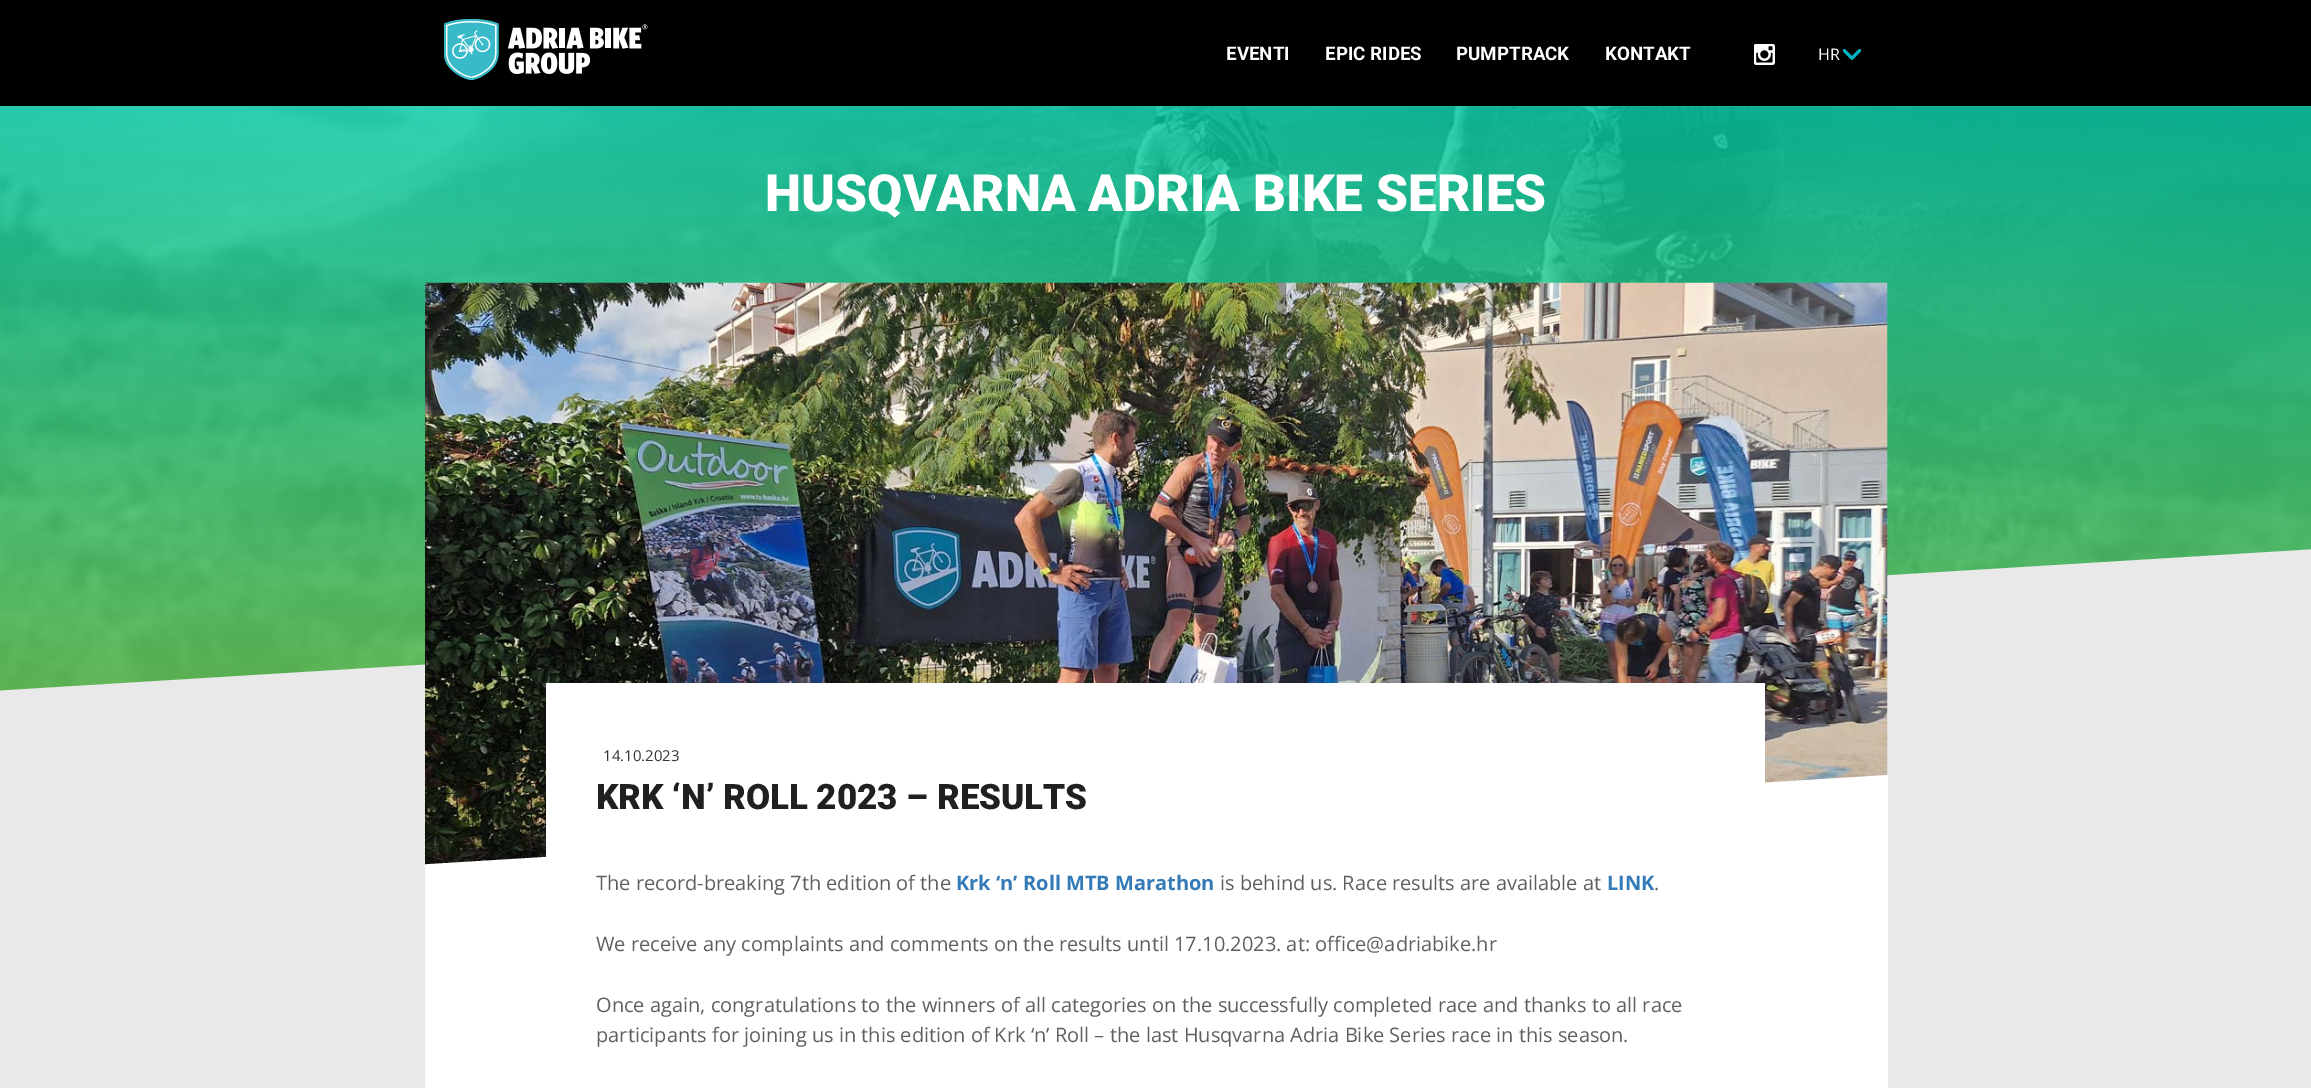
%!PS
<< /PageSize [2311 1088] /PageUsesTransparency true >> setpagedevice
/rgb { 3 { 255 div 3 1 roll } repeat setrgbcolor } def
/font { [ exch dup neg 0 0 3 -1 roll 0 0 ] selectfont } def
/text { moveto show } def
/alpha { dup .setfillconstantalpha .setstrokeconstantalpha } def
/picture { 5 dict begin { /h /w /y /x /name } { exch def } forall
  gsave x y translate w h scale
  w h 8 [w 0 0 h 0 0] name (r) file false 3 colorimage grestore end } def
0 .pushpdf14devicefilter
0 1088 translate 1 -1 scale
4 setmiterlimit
233 233 233 rgb
0 0 2311 1088 rectfill
0 0 0 rgb
0 0 2311 106 rectfill
(img_01.rgb) 444 19 204 61 picture
(img_02.rgb) 1754 44 21 21 picture
(img_03.rgb) 1843 49 18 11 picture
(img_04.rgb) 0 106 2311 585 picture
0.8 alpha
gsave 0 106 moveto 2311 0 rlineto 0 585 rlineto -2311 0 rlineto closepath clip newpath
<< /ShadingType 2 /ColorSpace /DeviceRGB /Coords [1156 106 1156 733] /Extend [true true] /Function << /FunctionType 2 /Domain [0 1] /C0 [0.008 0.804 0.655] /C1 [0.439 0.835 0.345] /N 1 >> >> shfill grestore
1 alpha
233 233 233 rgb
-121 698 moveto 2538 -155 rlineto 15 249 rlineto -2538 155 rlineto closepath fill
(img_05.rgb) 425 282 1463 583 picture
gsave
425 283 1463 612 rectclip
255 255 255 rgb
349 869 moveto 1606 -98 rlineto 7 125 rlineto -1605 98 rlineto closepath fill
grestore
255 255 255 rgb
425 895 1463 193 rectfill
546 683 1219 174 rectfill
/Roboto-Bold 18.75 font
(EVENTI) 1226 60 text
(EPIC RIDES) 1325 60 text
(PUMPTRACK) 1456 60 text
(KONTAKT) 1605 60 text
/OpenSans-Regular 16 font
(HR) 1818 60 text
/Roboto-Black 51.25 font
(HUSQVARNA ADRIA BIKE SERIES) 765 211 text
/OpenSans-Regular 15 font
51 51 51 rgb
(14.10.2023) 603 761 text
/Roboto-Black 35 font
32 32 32 rgb
(KRK ‘N’ ROLL 2023 – RESULTS) 596 809 text
/OpenSans-Regular 20 font
95 95 95 rgb
(The record-breaking 7th edition of the) 596 890 text
/OpenSans-Bold 20 font
51 122 183 rgb
(Krk ‘n’ Roll MTB Marathon) 956 890 text
/OpenSans-Regular 20 font
95 95 95 rgb
(is behind us. Race results are available at) 1220 890 text
/OpenSans-Bold 20 font
51 122 183 rgb
(LINK) 1607 890 text
/OpenSans-Regular 20 font
95 95 95 rgb
(.) 1654 890 text
(We receive any complaints and comments on the results until 17.10.2023. at: office@adriabike.hr) 596 951 text
(Once again, congratulations to the winners of all categories on the successfully completed race and thanks to all race) 596 1012 text
(participants for joining us in this edition of Krk ‘n’ Roll – the last Husqvarna Adria Bike Series race in this season.) 596 1042 text
.poppdf14devicefilter showpage
